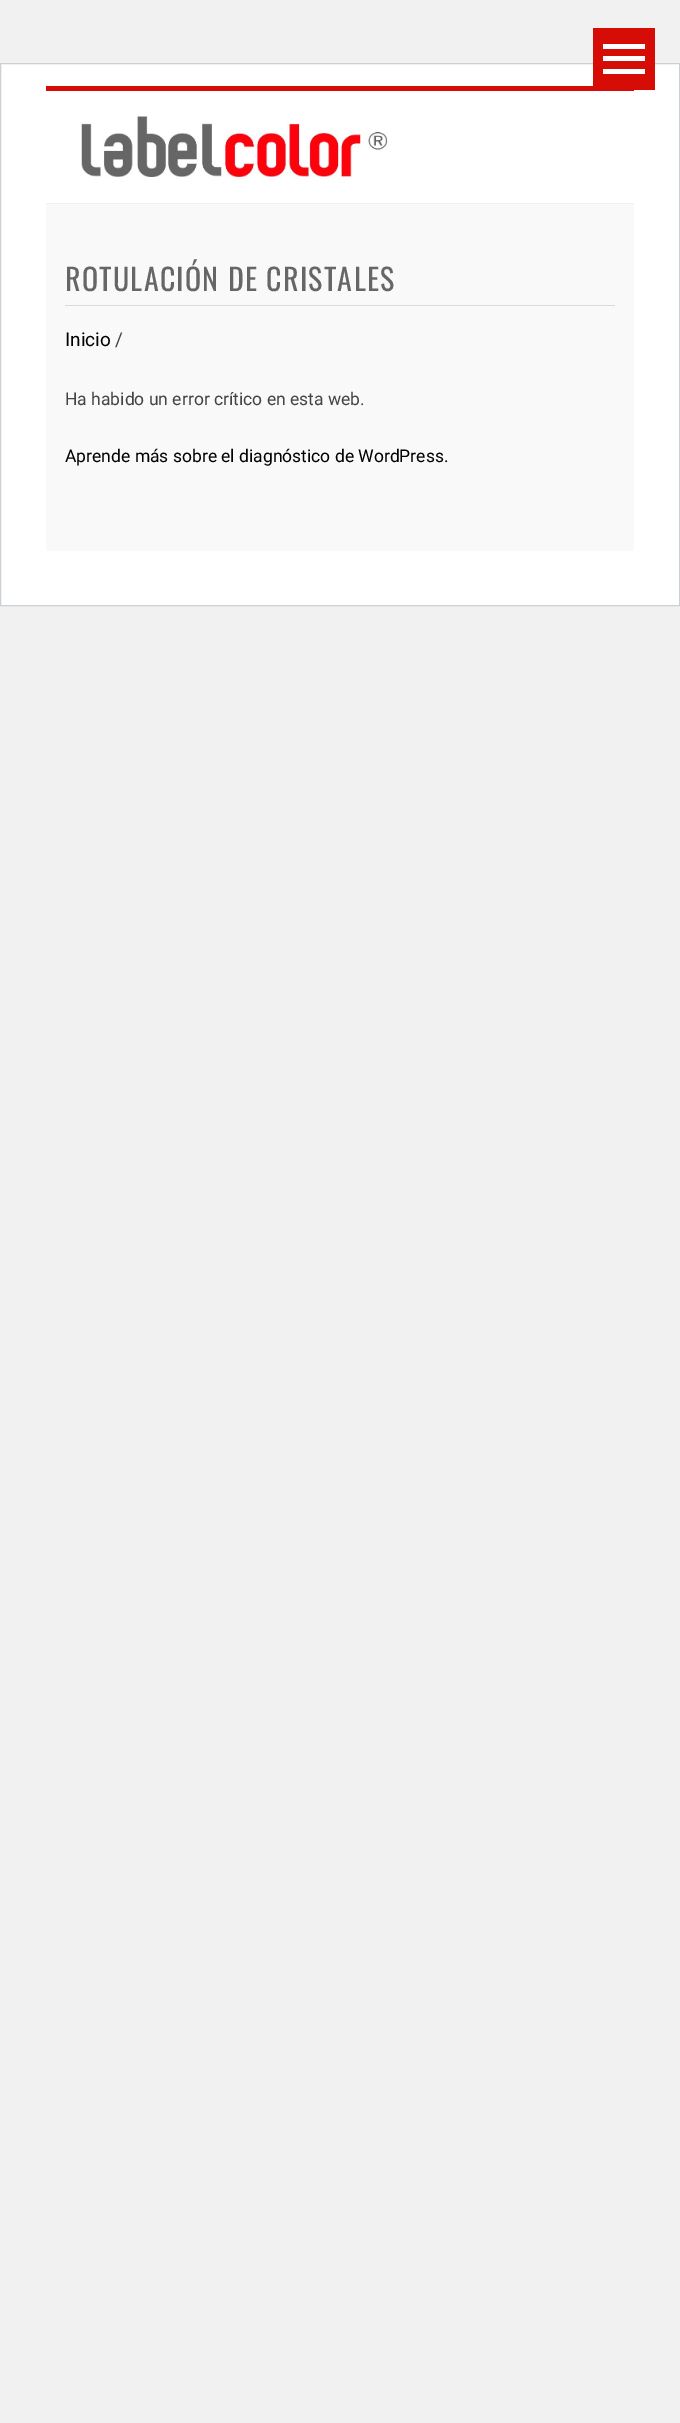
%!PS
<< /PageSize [680 2423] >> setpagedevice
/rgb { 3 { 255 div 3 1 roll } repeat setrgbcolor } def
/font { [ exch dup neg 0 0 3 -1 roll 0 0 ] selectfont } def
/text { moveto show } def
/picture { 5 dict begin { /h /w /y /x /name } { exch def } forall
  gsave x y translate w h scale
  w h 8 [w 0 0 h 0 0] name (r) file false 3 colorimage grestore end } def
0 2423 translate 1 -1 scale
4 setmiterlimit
241 241 241 rgb
0 0 680 2423 rectfill
255 255 255 rgb
0.5 63.5 moveto 679 0 rlineto 0 542 rlineto -679 0 rlineto closepath gsave fill grestore
204 208 212 rgb
stroke
214 13 6 rgb
46 86 588 5 rectfill
241 241 241 rgb
46 203 588 1 rectfill
214 13 6 rgb
593 28 62 62 rectfill
255 255 255 rgb
603 44 42 5 rectfill
603 69 42 5 rectfill
603 56 42 5 rectfill
(img_01.rgb) 81 116 307 64 picture
249 249 249 rgb
46 204 588 347 rectfill
218 218 218 rgb
65 305 550 1 rectfill
/Oswald-Regular 30 font
102 102 102 rgb
65 291 moveto 1.25 0 (ROTULACIÓN DE CRISTALES) ashow
/Roboto-Regular 19 font
0 0 0 rgb
(Inicio) 65 346 text
68 68 68 rgb
(/) 115 346 text
/Roboto-Regular 17.5 font
(Ha habido un error crítico en esta web.) 65 405 text
0 0 0 rgb
(Aprende más sobre el diagnóstico de WordPress.) 65 462 text
showpage
